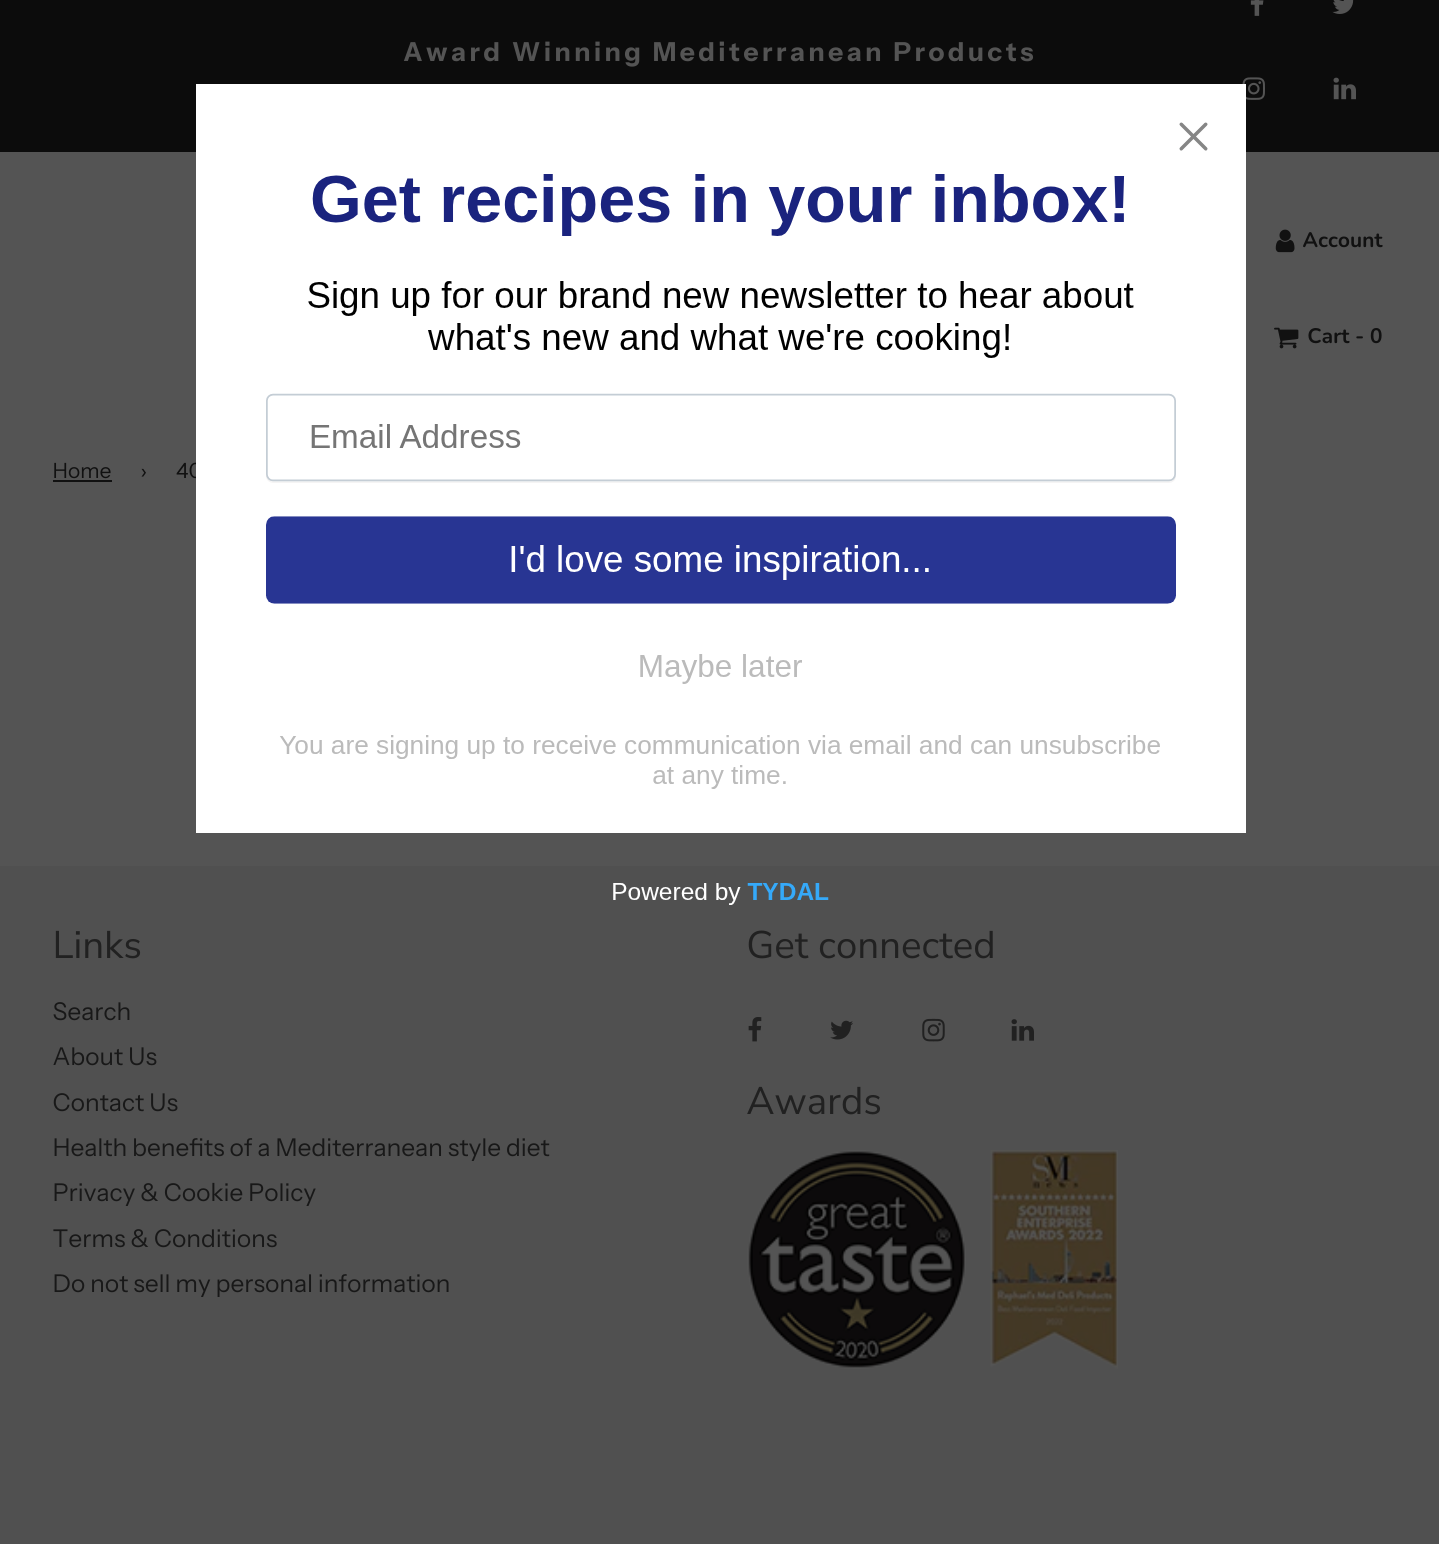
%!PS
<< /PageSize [1439 1544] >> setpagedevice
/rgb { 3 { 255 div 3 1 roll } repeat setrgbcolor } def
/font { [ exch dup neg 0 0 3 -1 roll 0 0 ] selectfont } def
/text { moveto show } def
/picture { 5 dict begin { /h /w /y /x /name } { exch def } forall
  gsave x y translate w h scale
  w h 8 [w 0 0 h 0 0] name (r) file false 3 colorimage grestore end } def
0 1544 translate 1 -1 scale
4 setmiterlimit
255 255 255 rgb
0 0 1439 1544 rectfill
36 36 36 rgb
0 0 1439 152 rectfill
(img_02.rgb) 1250 0 14 16 picture
(img_03.rgb) 1332 0 22 14 picture
(img_04.rgb) 1242 77 23 23 picture
(img_05.rgb) 1333 77 23 23 picture
(img_06.rgb) 1275 229 20 24 picture
(img_07.rgb) 1274 327 25 22 picture
51 51 51 rgb
53 480 59 2 rectfill
242 242 242 rgb
0 866 1439 678 rectfill
(img_08.rgb) 748 1017 14 25 picture
(img_09.rgb) 830 1020 23 20 picture
(img_10.rgb) 922 1018 23 24 picture
(img_11.rgb) 1011 1019 23 22 picture
(img_12.rgb) 747 1150 219 219 picture
(img_13.rgb) 990 1150 128 219 picture
/InstrumentSans-Bold 26.25 font
255 255 255 rgb
403 61 moveto 3.5 0 (Award Winning Mediterranean Products) ashow
/Nunito-Bold 21 font
51 51 51 rgb
(Account) 1302 247 text
(Cart - 0) 1307 343 text
/InstrumentSans-Regular 21 font
(Home) 53 478 text
(›) 140 478 text
(40) 176 478 text
/NunitoSans-Regular 38.5 font
99 99 99 rgb
(Links) 53 958 text
/InstrumentSans-Regular 24.5 font
74 74 74 rgb
(Search) 53 1020 text
(About Us) 53 1065 text
(Contact Us) 53 1111 text
(Health benefits of a Mediterranean style diet) 53 1156 text
(Privacy & Cookie Policy) 53 1201 text
(Terms & Conditions) 53 1247 text
(Do not sell my personal information) 53 1292 text
/NunitoSans-Regular 38.5 font
99 99 99 rgb
(Get connected) 746 958 text
(Awards) 746 1114 text
(img_01.rgb) 0 0 1439 1544 picture
showpage
